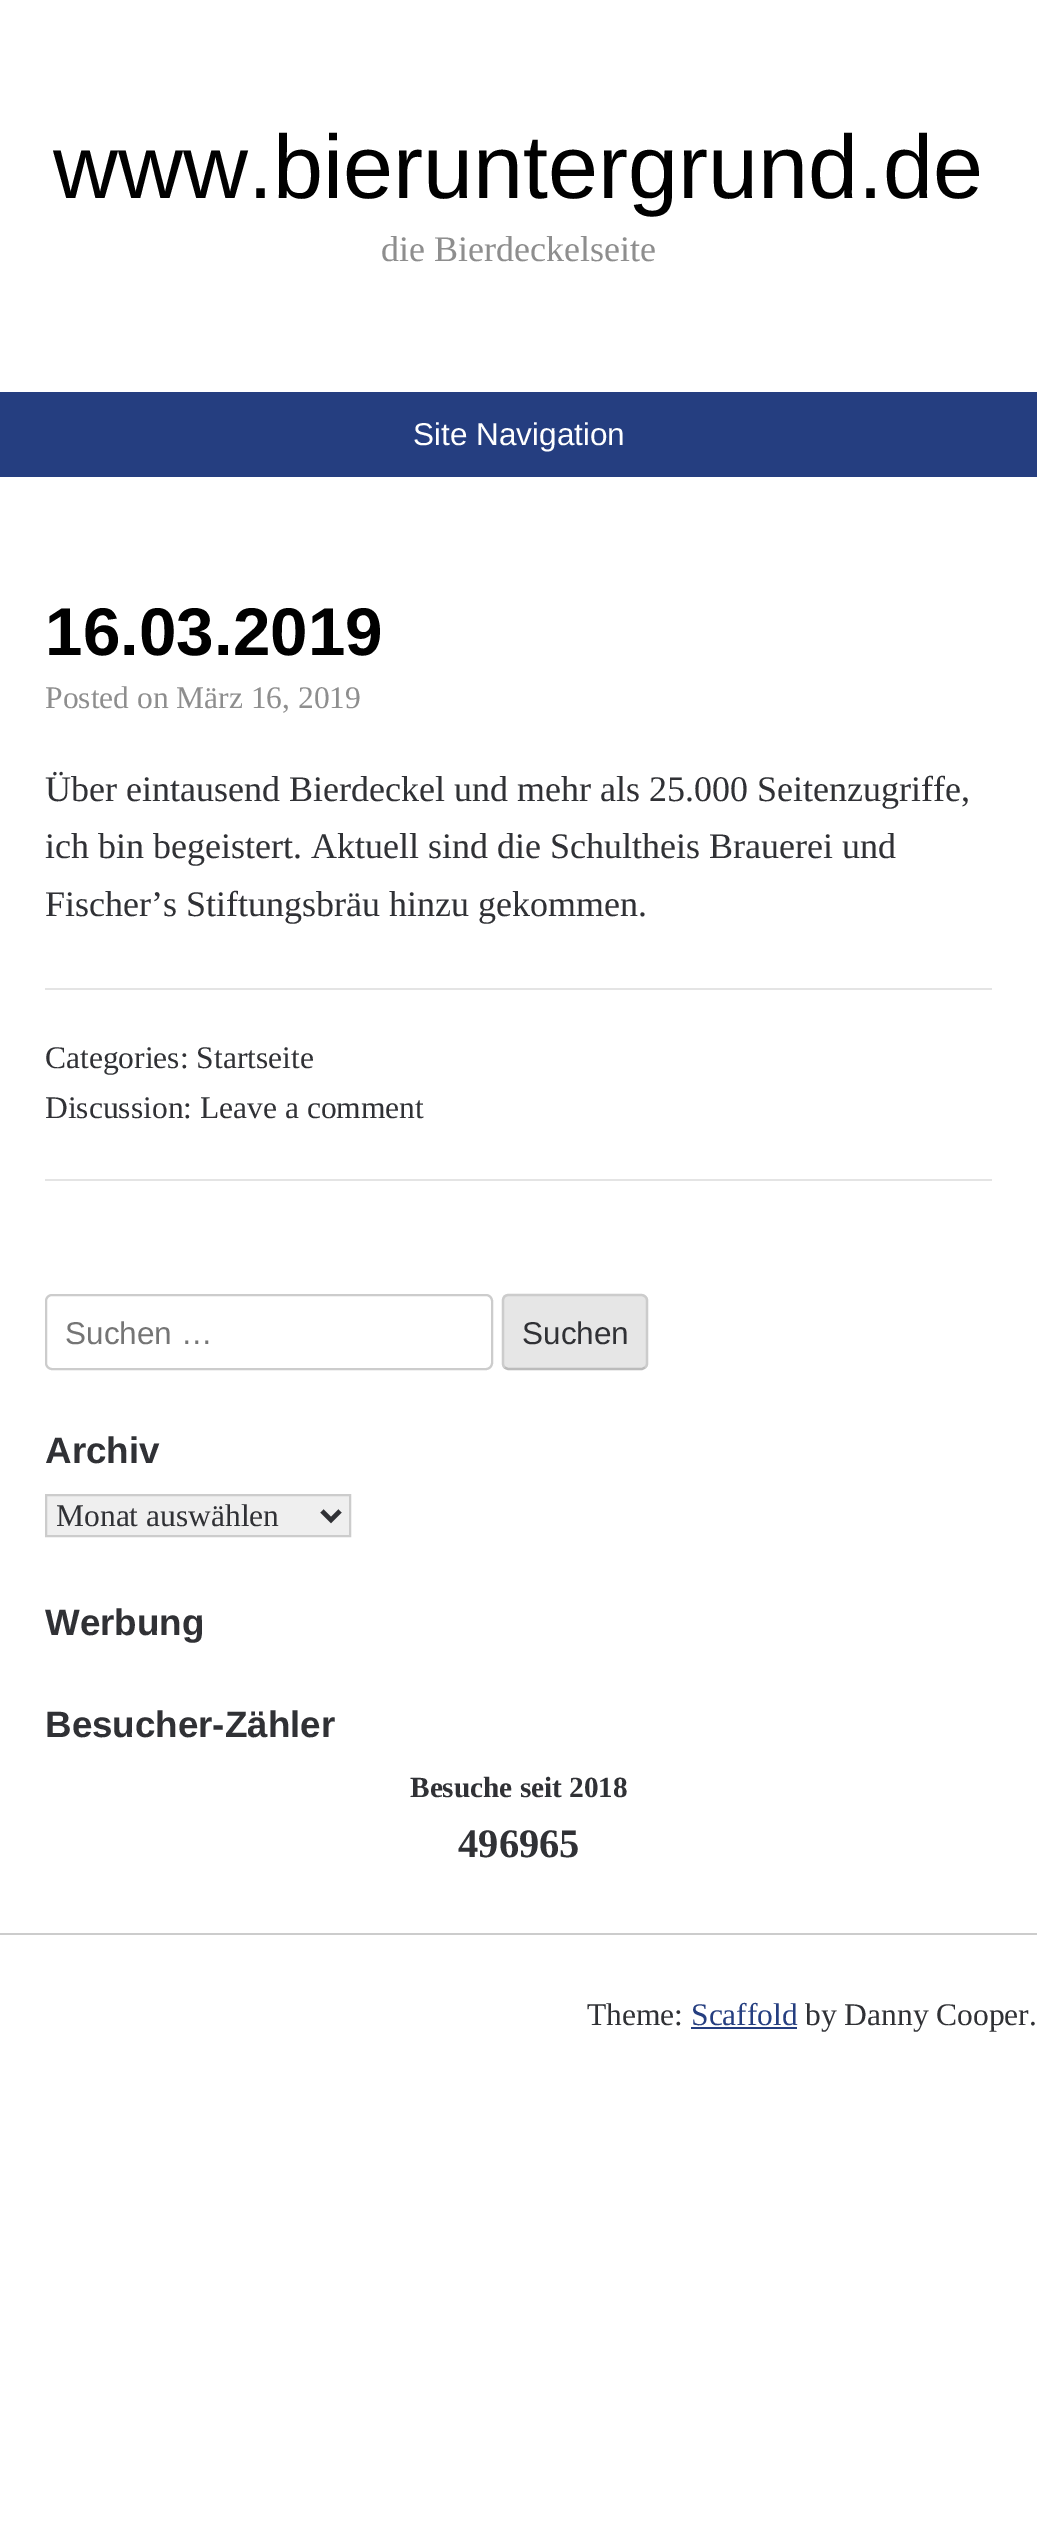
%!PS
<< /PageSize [1037 2544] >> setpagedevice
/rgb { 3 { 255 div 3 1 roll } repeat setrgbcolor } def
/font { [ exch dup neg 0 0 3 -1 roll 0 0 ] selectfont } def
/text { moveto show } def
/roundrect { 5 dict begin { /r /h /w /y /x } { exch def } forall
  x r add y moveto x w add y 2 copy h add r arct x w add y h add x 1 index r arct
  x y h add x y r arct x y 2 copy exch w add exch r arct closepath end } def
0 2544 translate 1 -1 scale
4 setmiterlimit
255 255 255 rgb
0 0 1037 2544 rectfill
37 62 128 rgb
0 392 1037 85 rectfill
228 228 228 rgb
45 988 947 2 rectfill
45 1179 947 2 rectfill
204 204 204 rgb
2 setlinewidth
46 1295 446 74 6 roundrect stroke
230 230 230 rgb
502 1294 146 76 7 roundrect fill
187 187 187 rgb
2.2 setlinewidth
645 1367.5 moveto -3 1.5 rlineto -134 0 rlineto -3.5 -1.5 rlineto stroke
204 204 204 rgb
504.5 1367.5 moveto -1 -1 -1.5 -2.5 -1.5 -4 rcurveto 0 -63 rlineto 0 -1.5 0.5 -3 1.5 -4 rcurveto 1 -1 2.5 -1.5 4 -1.5 rcurveto 132.5 0 rlineto 1.5 0 3 0.5 4 1.5 rcurveto 1.5 1 2 2.5 2 4 rcurveto 0 63 rlineto 0 1.5 -0.5 3 -2 4 rcurveto stroke
239 239 239 rgb
46 1495 moveto 304 0 rlineto 0 41 rlineto -304 0 rlineto closepath gsave fill grestore
204 204 204 rgb
2 setlinewidth
stroke
48 49 53 rgb
4.5 setlinewidth
322 1511 moveto 9 9 rlineto 9 -9 rlineto stroke
204 204 204 rgb
0 1933 1037 2 rectfill
37 62 128 rgb
691 2027 106 2 rectfill
/LiberationSans-Regular 90 font
0 0 0 rgb
(www.bieruntergrund.de) 53 198 text
/LiberationSerif-Regular 36 font
142 142 142 rgb
(die Bierdeckelseite) 381 261 text
/LiberationSans-Regular 31.5 font
255 255 255 rgb
(Site Navigation) 413 445 text
/LiberationSans-Bold 67.5 font
0 0 0 rgb
(16.03.2019) 45 655 text
/LiberationSerif-Regular 31.5 font
142 142 142 rgb
(Posted on März 16, 2019) 45 708 text
/LiberationSerif-Regular 36 font
48 49 53 rgb
(Über eintausend Bierdeckel und mehr als 25.000 Seitenzugriffe,) 45 801 text
(ich bin begeistert. Aktuell sind die Schultheis Brauerei und) 45 858 text
(Fischer’s Stiftungsbräu hinzu gekommen.) 45 916 text
/LiberationSerif-Regular 31.5 font
(Categories: Startseite) 45 1068 text
(Discussion: Leave a comment) 45 1118 text
/LiberationSans-Regular 31.5 font
117 117 117 rgb
(Suchen …) 65 1344 text
48 49 53 rgb
(Suchen) 522 1344 text
/LiberationSans-Bold 36.75 font
(Archiv) 45 1463 text
/LiberationSerif-Regular 31.5 font
(Monat auswählen) 56 1526 text
/LiberationSans-Bold 36.75 font
(Werbung) 45 1635 text
(Besucher-Zähler) 45 1737 text
/LiberationSerif-Bold 29.25 font
(Besuche seit 2018) 410 1797 text
/LiberationSerif-Bold 40.5 font
(496965) 458 1857 text
/LiberationSerif-Regular 31.5 font
(Theme:) 587 2025 text
37 62 128 rgb
(Scaffold) 691 2025 text
48 49 53 rgb
(by Danny Cooper.) 805 2025 text
showpage
